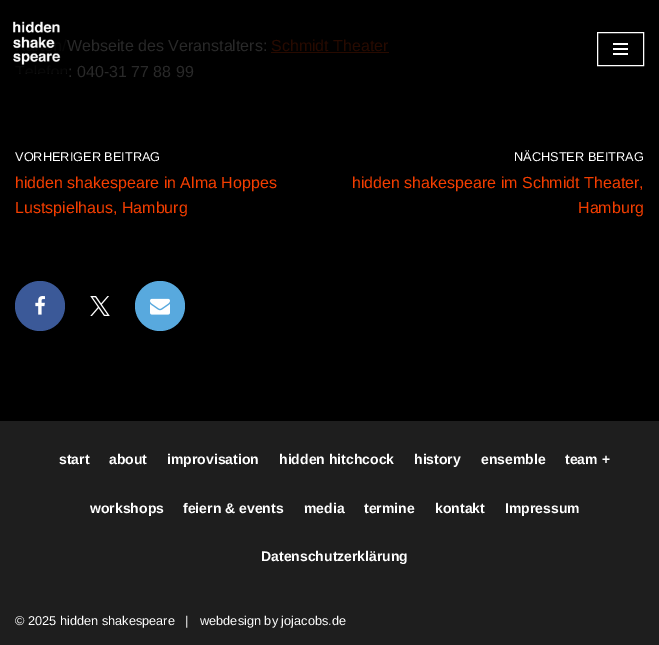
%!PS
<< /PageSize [659 645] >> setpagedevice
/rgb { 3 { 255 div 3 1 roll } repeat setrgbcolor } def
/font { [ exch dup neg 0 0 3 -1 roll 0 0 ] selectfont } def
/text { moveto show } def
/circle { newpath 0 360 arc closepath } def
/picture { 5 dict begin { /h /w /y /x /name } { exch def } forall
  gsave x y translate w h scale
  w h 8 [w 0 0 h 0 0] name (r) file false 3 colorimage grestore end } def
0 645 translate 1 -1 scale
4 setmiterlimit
0 0 0 rgb
0 0 659 645 rectfill
255 255 255 rgb
597.5 32.5 46 33 rectstroke
613 43 15 2 rectfill
613 48 15 2 rectfill
613 53 15 2 rectfill
39 10 0 rgb
271 52 118 1 rectfill
59 89 152 rgb
40 306 25 circle fill
(img_02.rgb) 35 296 10 19 picture
(img_03.rgb) 90 296 20 20 picture
88 169 222 rgb
160 306 25 circle fill
(img_04.rgb) 150 298 20 17 picture
30 30 30 rgb
0 421 659 224 rectfill
/LiberationSans-Regular 16 font
41 41 41 rgb
(Webseite des Veranstalters:) 67 51 text
(img_01.rgb) 13 21 54 53 picture
39 10 0 rgb
(Schmidt Theater) 271 51 text
41 41 41 rgb
(: 040-31 77 88 99) 68 77 text
/LiberationSans-Regular 12.75 font
255 255 255 rgb
(VORHERIGER BEITRAG) 15 161 text
/LiberationSans-Regular 16 font
244 62 0 rgb
(hidden shakespeare in Alma Hoppes) 15 188 text
(Lustspielhaus, Hamburg) 15 213 text
/LiberationSans-Regular 12.75 font
255 255 255 rgb
(NÄCHSTER BEITRAG) 514 161 text
/LiberationSans-Regular 16 font
244 62 0 rgb
(hidden shakespeare im Schmidt Theater,) 352 188 text
(Hamburg) 578 213 text
/LiberationSans-Bold 14 font
255 255 255 rgb
(start) 59 464 text
(about) 109 464 text
(improvisation) 167 464 text
(hidden hitchcock) 279 464 text
(history) 414 464 text
(ensemble) 481 464 text
(team +) 565 464 text
(workshops) 90 513 text
(feiern & events) 183 513 text
(media) 304 513 text
(termine) 364 513 text
(kontakt) 435 513 text
(Impressum) 505 513 text
(Datenschutzerklärung) 261 561 text
/LiberationSans-Regular 12.75 font
(© 2025 hidden shakespeare   |) 15 625 text
(webdesign by jojacobs.de) 200 625 text
showpage
